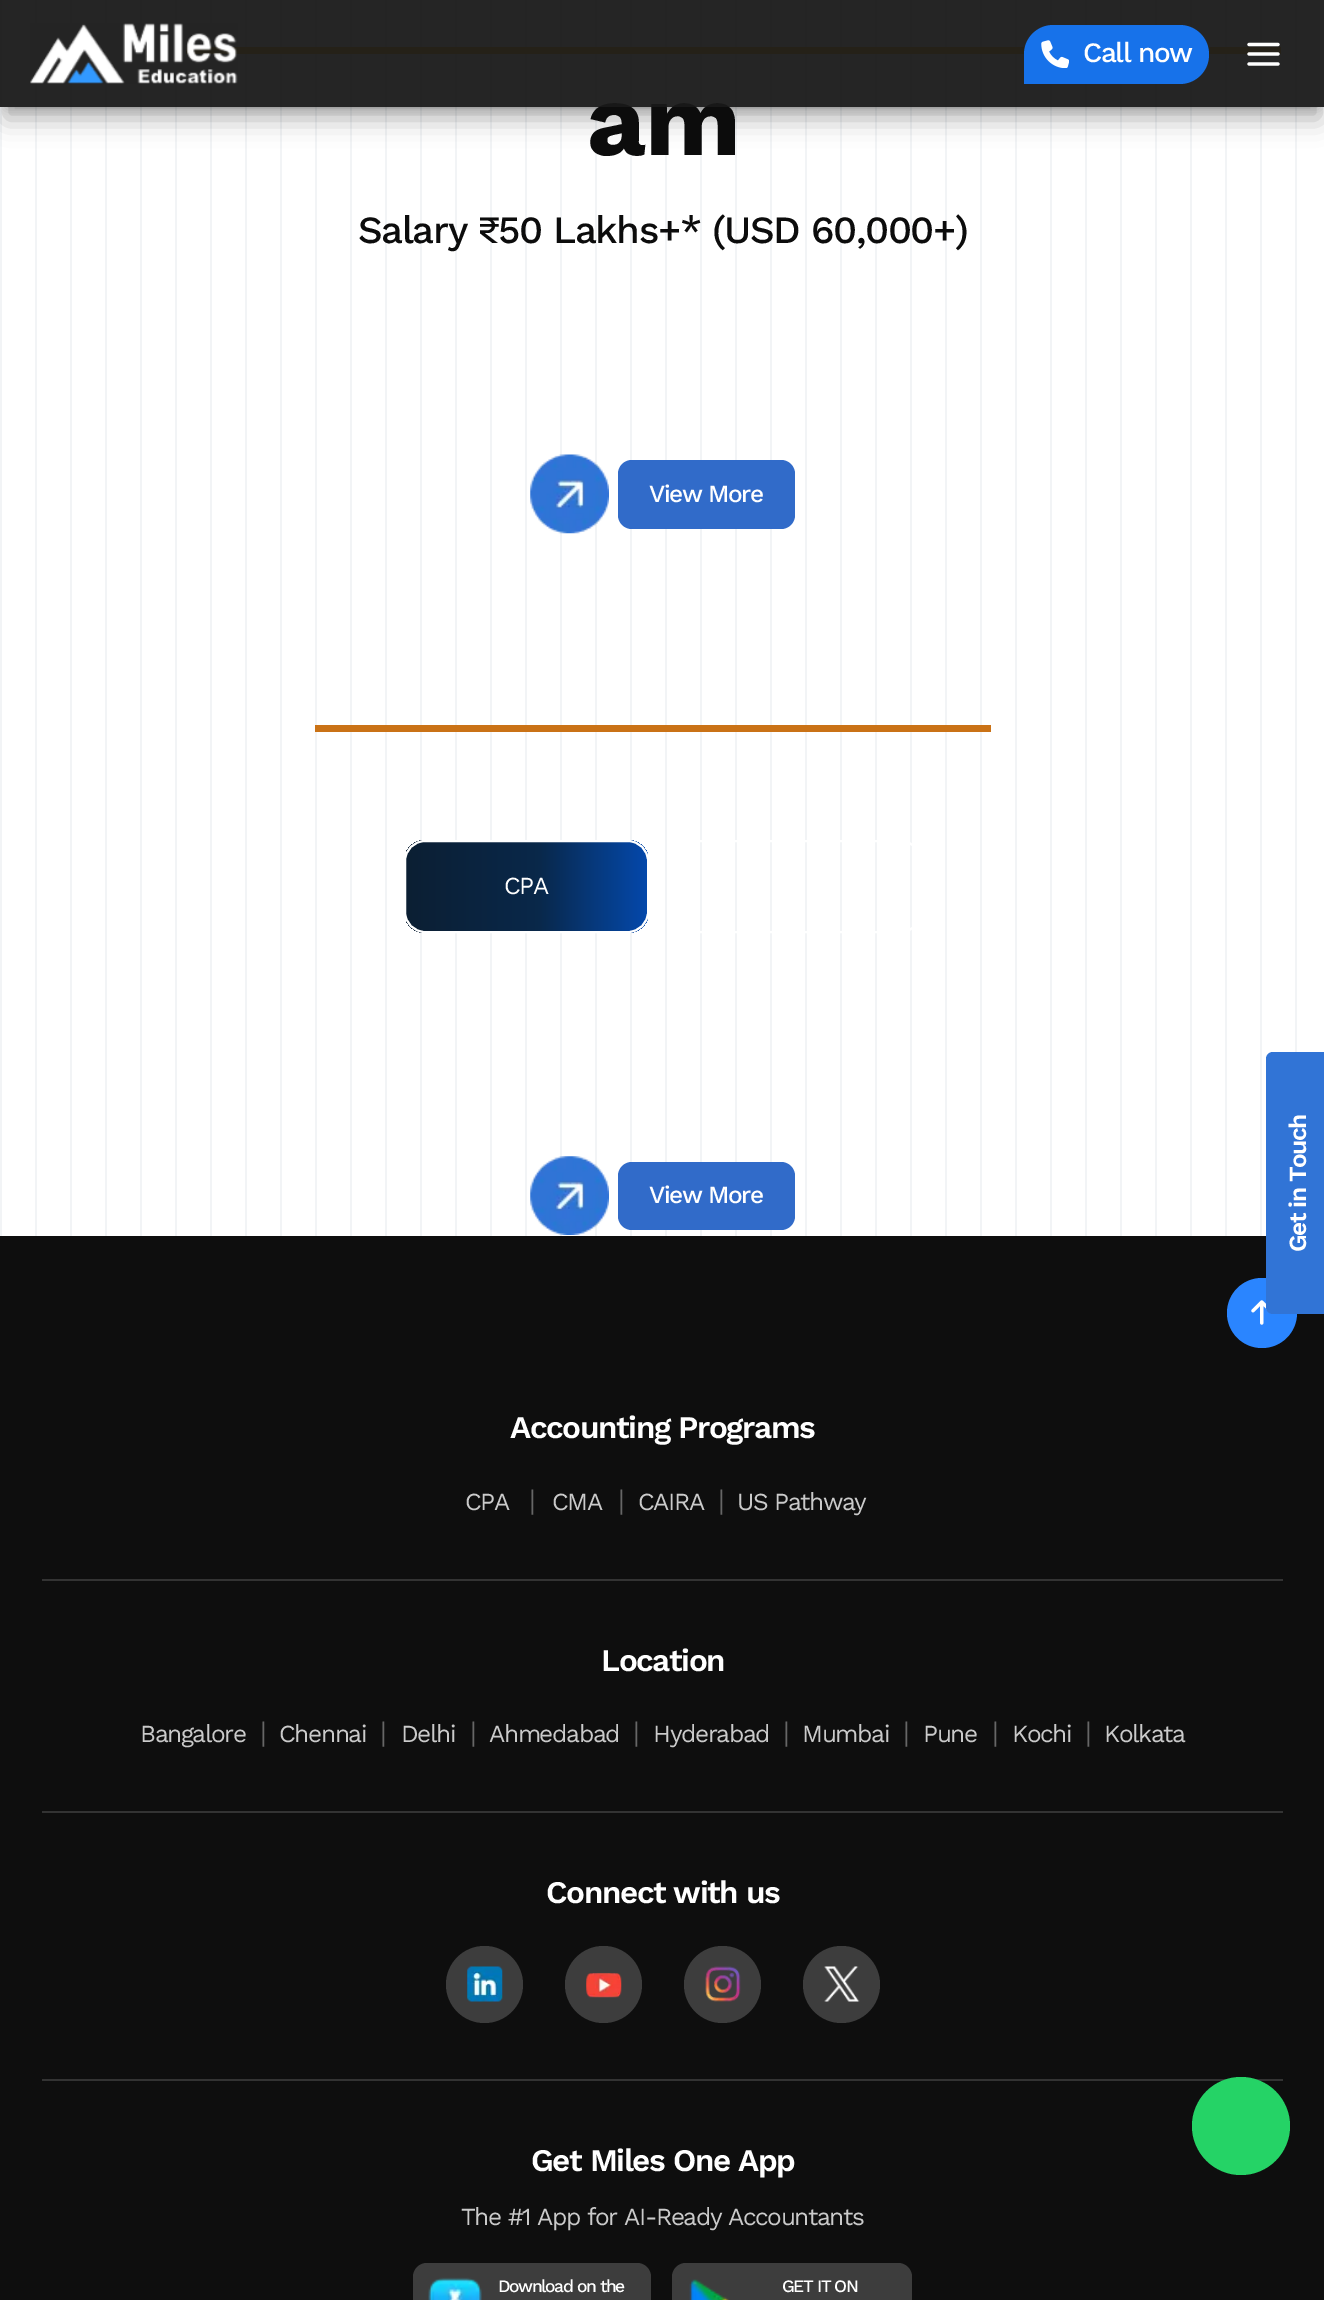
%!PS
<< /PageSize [1324 2300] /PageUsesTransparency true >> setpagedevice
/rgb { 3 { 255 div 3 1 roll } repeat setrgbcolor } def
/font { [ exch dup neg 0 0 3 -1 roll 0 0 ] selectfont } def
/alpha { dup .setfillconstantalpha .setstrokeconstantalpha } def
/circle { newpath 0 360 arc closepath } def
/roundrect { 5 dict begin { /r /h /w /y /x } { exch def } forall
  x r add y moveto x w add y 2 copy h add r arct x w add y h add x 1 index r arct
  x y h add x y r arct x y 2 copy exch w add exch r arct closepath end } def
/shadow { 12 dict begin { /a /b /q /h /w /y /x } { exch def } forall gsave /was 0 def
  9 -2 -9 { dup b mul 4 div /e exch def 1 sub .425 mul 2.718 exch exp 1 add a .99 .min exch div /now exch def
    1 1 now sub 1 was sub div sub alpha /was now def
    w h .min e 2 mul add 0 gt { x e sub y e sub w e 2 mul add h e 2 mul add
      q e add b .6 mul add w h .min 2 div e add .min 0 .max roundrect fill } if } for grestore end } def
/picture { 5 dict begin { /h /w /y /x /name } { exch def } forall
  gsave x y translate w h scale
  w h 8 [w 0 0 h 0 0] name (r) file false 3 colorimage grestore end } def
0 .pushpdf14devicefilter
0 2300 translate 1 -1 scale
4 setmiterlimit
255 255 255 rgb
0 0 1324 2300 rectfill
(img_01.rgb) 0 0 1297 1236 picture
255 186 8 rgb
186 47 1095 7 rectfill
gsave
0 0 moveto 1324 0 rlineto 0 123 rlineto -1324 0 rlineto closepath 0 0 moveto 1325 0 rlineto 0 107 rlineto -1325 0 rlineto closepath eoclip newpath
0 0 0 rgb
7 14 1311 93 0 5 0.3 shadow
grestore
gsave
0 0 moveto 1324 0 rlineto 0 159 rlineto -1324 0 rlineto closepath 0 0 moveto 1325 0 rlineto 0 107 rlineto -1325 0 rlineto closepath eoclip newpath
0 0 0 rgb
5 23 1315 96 0 13 0.3 shadow
grestore
(img_04.rgb) 530 454 79 80 picture
49 107 201 rgb
618 460 177 69 14 roundrect fill
202 114 22 rgb
315 725 676 7 rectfill
gsave
404 840 245 93 21 roundrect clip newpath
gsave 406 840 moveto 242 0 rlineto 0 93 rlineto -242 0 rlineto closepath clip newpath
<< /ShadingType 2 /ColorSpace /DeviceRGB /Coords [406 886 648 886] /Extend [true true] /Function << /FunctionType 3 /Domain [0 1] /Functions [<< /FunctionType 2 /Domain [0 1] /C0 [0.047 0.122 0.2] /C1 [0.035 0.157 0.29] /N 1 >> << /FunctionType 2 /Domain [0 1] /C0 [0.035 0.157 0.29] /C1 [0.016 0.282 0.667] /N 1 >> << /FunctionType 2 /Domain [0 1] /C0 [0.016 0.282 0.667] /C1 [0.016 0.282 0.667] /N 1 >>] /Bounds [0.55 0.99] /Encode [0 1 0 1 0 1] >> >> shfill grestore
grestore
255 255 255 rgb
2 setlinewidth
405 841 243 91 20 roundrect stroke
678 841 243 91 20 roundrect stroke
(img_05.rgb) 530 1156 79 79 picture
49 107 201 rgb
618 1162 177 68 14 roundrect fill
14 14 14 rgb
0 1236 1324 1064 rectfill
42 133 255 rgb
1262 1313 35 circle fill
(img_06.rgb) 1251 1300 19 25 picture
51 51 51 rgb
42 1579 1241 2 rectfill
42 1811 1241 2 rectfill
61 61 61 rgb
484.5 1984.5 38.5 circle fill
(img_07.rgb) 467 1966 36 36 picture
603.5 1984.5 38.5 circle fill
(img_08.rgb) 586 1972 36 26 picture
722.5 1984.5 38.5 circle fill
(img_09.rgb) 705 1966 36 36 picture
841.5 1984.5 38.5 circle fill
(img_10.rgb) 824 1966 36 36 picture
51 51 51 rgb
42 2079 1241 2 rectfill
61 61 61 rgb
413 2263 238 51 14 roundrect fill
(img_11.rgb) 428 2277 54 23 picture
672 2263 240 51 14 roundrect fill
(img_12.rgb) 689 2279 40 21 picture
49 116 214 rgb
1266 1307 moveto 0 -248 rlineto 0 -4 3 -7 7 -7 rcurveto 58 0 rlineto 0 262 rlineto -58 0 rlineto -4 0 -7 -3 -7 -7 rcurveto closepath fill
37 211 102 rgb
1241 2126 49 circle fill
/WorkSans-Bold 102 font
12 12 12 rgb
587 155 moveto -1.4 0 (am) ashow
0.95 alpha
25 25 25 rgb
0 0 1324 107 rectfill
1 alpha
23 114 234 rgb
1053.5 25 moveto 126 0 rlineto 16.5 0 29.5 13 29.5 29.5 rcurveto 0 16.5 -13 29.5 -29.5 29.5 rcurveto -155.5 0 rlineto 0 -29.5 rlineto 0 -16.5 13 -29.5 29.5 -29.5 rcurveto closepath fill
(img_03.rgb) 1041 40 28 28 picture
/WorkSans-Medium 28 font
255 255 255 rgb
1083 62 moveto -1.4 0 (Call now) ashow
(img_02.rgb) 30 23 208 61 picture
3.2 setlinewidth
1 setlinecap
1 setlinejoin
1249 54 moveto 29 0 rlineto 1249 44.5 moveto 29 0 rlineto 1249 64 moveto 29 0 rlineto stroke
/WorkSans-Medium 38.5 font
12 12 12 rgb
358 243 moveto -1.4 0 (Salary ₹50 Lakhs+* \(USD 60,000+\)) ashow
/WorkSans-Medium 24.5 font
255 255 255 rgb
649 502 moveto -1.4 0 (View More) ashow
/WorkSans-Regular 24.5 font
504 894 moveto -1.4 0 (CPA) ashow
/WorkSans-Medium 24.5 font
649 1203 moveto -1.4 0 (View More) ashow
/WorkSans-SemiBold 31.5 font
510 1438 moveto -1.4 0 (Accounting Programs) ashow
/WorkSans-Regular 24.5 font
202 202 202 rgb
465 1510 moveto -1.4 0 (CPA) ashow
/WorkSans-Regular 28 font
102 102 102 rgb
529 1510 moveto -1.4 0 (|) ashow
/WorkSans-Regular 24.5 font
202 202 202 rgb
552 1510 moveto -1.4 0 (CMA) ashow
/WorkSans-Regular 28 font
102 102 102 rgb
618 1510 moveto -1.4 0 (|) ashow
/WorkSans-Regular 24.5 font
202 202 202 rgb
638 1510 moveto -1.4 0 (CAIRA) ashow
/WorkSans-Regular 28 font
102 102 102 rgb
718 1510 moveto -1.4 0 (|) ashow
/WorkSans-Regular 24.5 font
202 202 202 rgb
737 1510 moveto -1.4 0 (US Pathway) ashow
/WorkSans-SemiBold 31.5 font
255 255 255 rgb
601 1671 moveto -1.4 0 (Location) ashow
/WorkSans-Regular 24.5 font
202 202 202 rgb
140 1742 moveto -1.4 0 (Bangalore) ashow
/WorkSans-Regular 28 font
102 102 102 rgb
260 1742 moveto -1.4 0 (|) ashow
/WorkSans-Regular 24.5 font
202 202 202 rgb
279 1742 moveto -1.4 0 (Chennai) ashow
/WorkSans-Regular 28 font
102 102 102 rgb
380 1742 moveto -1.4 0 (|) ashow
/WorkSans-Regular 24.5 font
202 202 202 rgb
401 1742 moveto -1.4 0 (Delhi) ashow
/WorkSans-Regular 28 font
102 102 102 rgb
470 1742 moveto -1.4 0 (|) ashow
/WorkSans-Regular 24.5 font
202 202 202 rgb
489 1742 moveto -1.4 0 (Ahmedabad) ashow
/WorkSans-Regular 28 font
102 102 102 rgb
633 1742 moveto -1.4 0 (|) ashow
/WorkSans-Regular 24.5 font
202 202 202 rgb
653 1742 moveto -1.4 0 (Hyderabad) ashow
/WorkSans-Regular 28 font
102 102 102 rgb
783 1742 moveto -1.4 0 (|) ashow
/WorkSans-Regular 24.5 font
202 202 202 rgb
802 1742 moveto -1.4 0 (Mumbai) ashow
/WorkSans-Regular 28 font
102 102 102 rgb
903 1742 moveto -1.4 0 (|) ashow
/WorkSans-Regular 24.5 font
202 202 202 rgb
923 1742 moveto -1.4 0 (Pune) ashow
/WorkSans-Regular 28 font
102 102 102 rgb
992 1742 moveto -1.4 0 (|) ashow
/WorkSans-Regular 24.5 font
202 202 202 rgb
1012 1742 moveto -1.4 0 (Kochi) ashow
/WorkSans-Regular 28 font
102 102 102 rgb
1085 1742 moveto -1.4 0 (|) ashow
/WorkSans-Regular 24.5 font
202 202 202 rgb
1104 1742 moveto -1.4 0 (Kolkata) ashow
/WorkSans-SemiBold 31.5 font
255 255 255 rgb
546 1903 moveto -1.4 0 (Connect with us) ashow
531 2171 moveto -1.4 0 (Get Miles One App) ashow
/WorkSans-Regular 24.5 font
202 202 202 rgb
461 2225 moveto -1.4 0 (The #1 App for AI-Ready Accountants) ashow
/WorkSans-Medium 17.5 font
255 255 255 rgb
498 2292 moveto -1.4 0 (Download on the) ashow
782 2292 moveto -1.4 0 (GET IT ON) ashow
/WorkSans-SemiBold 24.5 font
gsave 1306 1252 translate -90 rotate 0 0 moveto -1.4 0 (Get in Touch) ashow grestore
.poppdf14devicefilter showpage
